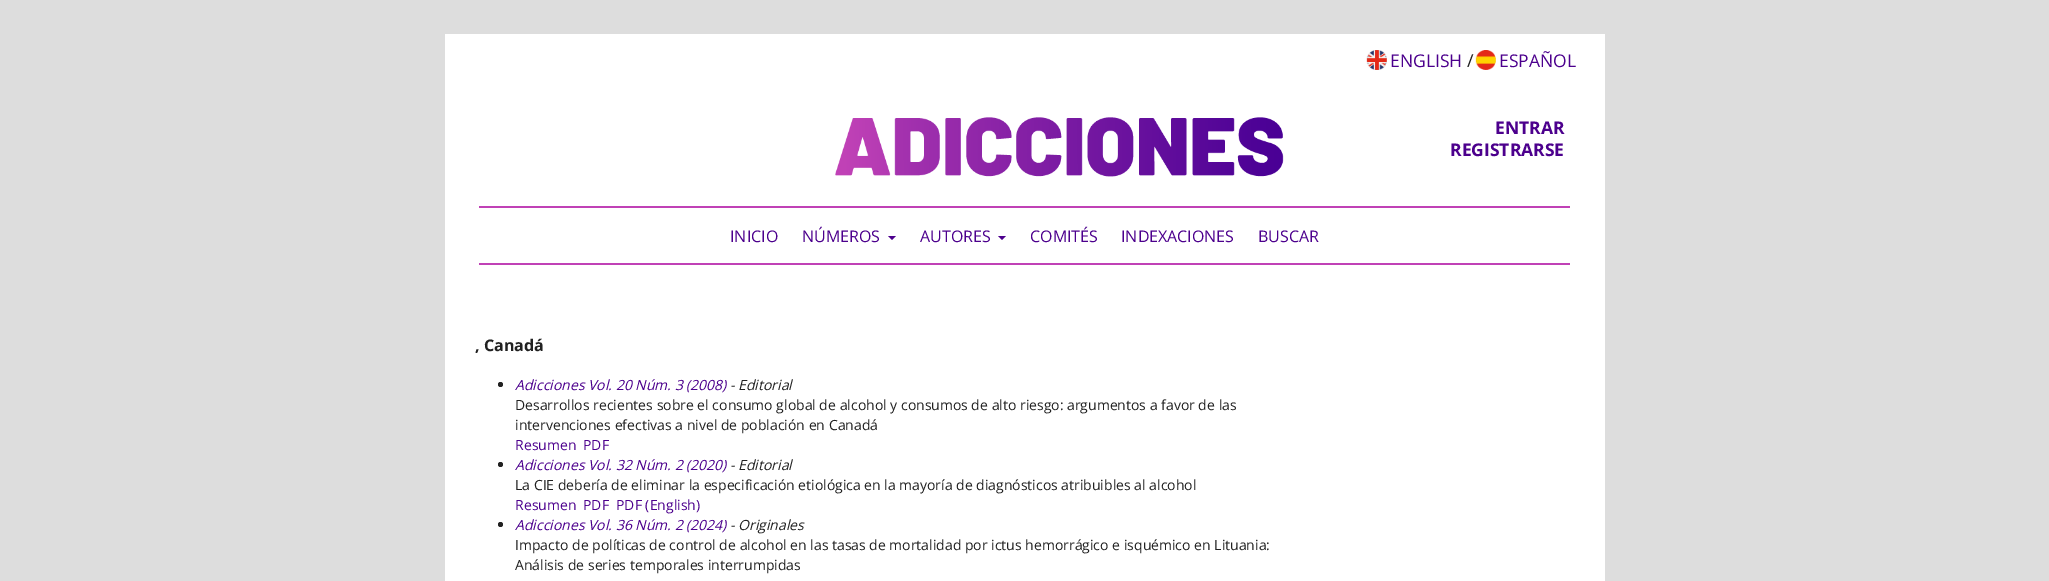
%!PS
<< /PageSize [2049 581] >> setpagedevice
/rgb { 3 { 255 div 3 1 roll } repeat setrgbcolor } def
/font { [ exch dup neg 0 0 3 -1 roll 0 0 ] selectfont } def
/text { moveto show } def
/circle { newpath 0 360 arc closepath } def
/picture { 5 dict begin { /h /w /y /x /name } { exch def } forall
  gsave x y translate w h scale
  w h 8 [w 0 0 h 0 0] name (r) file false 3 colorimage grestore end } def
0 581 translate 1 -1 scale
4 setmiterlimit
221 221 221 rgb
0 0 2049 581 rectfill
255 255 255 rgb
445 34 1160 547 rectfill
(img_01.rgb) 1366 50 21 20 picture
(img_02.rgb) 1475 50 21 20 picture
192 65 182 rgb
479 206 1091 2 rectfill
76 0 141 rgb
888 236 moveto 8 0 rlineto -4 4 rlineto closepath fill
998 236 moveto 8 0 rlineto -4 4 rlineto closepath fill
192 65 182 rgb
479 263 1091 2 rectfill
(img_03.rgb) 835 117 449 60 picture
33 33 33 rgb
500.5 384.5 2.5 circle fill
500.5 464.5 2.5 circle fill
500.5 524.5 2.5 circle fill
/OpenSans-Regular 17.5 font
76 0 141 rgb
(ENGLISH) 1390 67 text
/OpenSans-Regular 18 font
33 33 33 rgb
(/) 1467 67 text
/OpenSans-Regular 17.5 font
76 0 141 rgb
(ESPAÑOL) 1499 67 text
/OpenSans-Bold 17.5 font
(ENTRAR) 1495 134 text
(REGISTRARSE) 1450 156 text
/OpenSans-Regular 16 font
(INICIO) 730 242 text
(NÚMEROS) 802 242 text
(AUTORES) 920 242 text
(COMITÉS) 1030 242 text
(INDEXACIONES) 1121 242 text
(BUSCAR) 1258 242 text
/OpenSans-Bold 16 font
33 33 33 rgb
(, Canadá) 475 351 text
/OpenSans-Italic 14 font
76 0 141 rgb
(Adicciones Vol. 20 Núm. 3 \(2008\)) 515 390 text
33 33 33 rgb
(- Editorial) 730 390 text
/OpenSans-Regular 14 font
(Desarrollos recientes sobre el consumo global de alcohol y consumos de alto riesgo: argumentos a favor de las) 515 410 text
(intervenciones efectivas a nivel de población en Canadá) 515 430 text
76 0 141 rgb
(Resumen) 515 450 text
(PDF) 583 450 text
/OpenSans-Italic 14 font
(Adicciones Vol. 32 Núm. 2 \(2020\)) 515 470 text
33 33 33 rgb
(- Editorial) 730 470 text
/OpenSans-Regular 14 font
(La CIE debería de eliminar la especificación etiológica en la mayoría de diagnósticos atribuibles al alcohol) 515 490 text
76 0 141 rgb
(Resumen) 515 510 text
(PDF) 583 510 text
(PDF \(English\)) 616 510 text
/OpenSans-Italic 14 font
(Adicciones Vol. 36 Núm. 2 \(2024\)) 515 530 text
33 33 33 rgb
(- Originales) 730 530 text
/OpenSans-Regular 14 font
(Impacto de políticas de control de alcohol en las tasas de mortalidad por ictus hemorrágico e isquémico en Lituania:) 515 550 text
(Análisis de series temporales interrumpidas) 515 570 text
showpage
